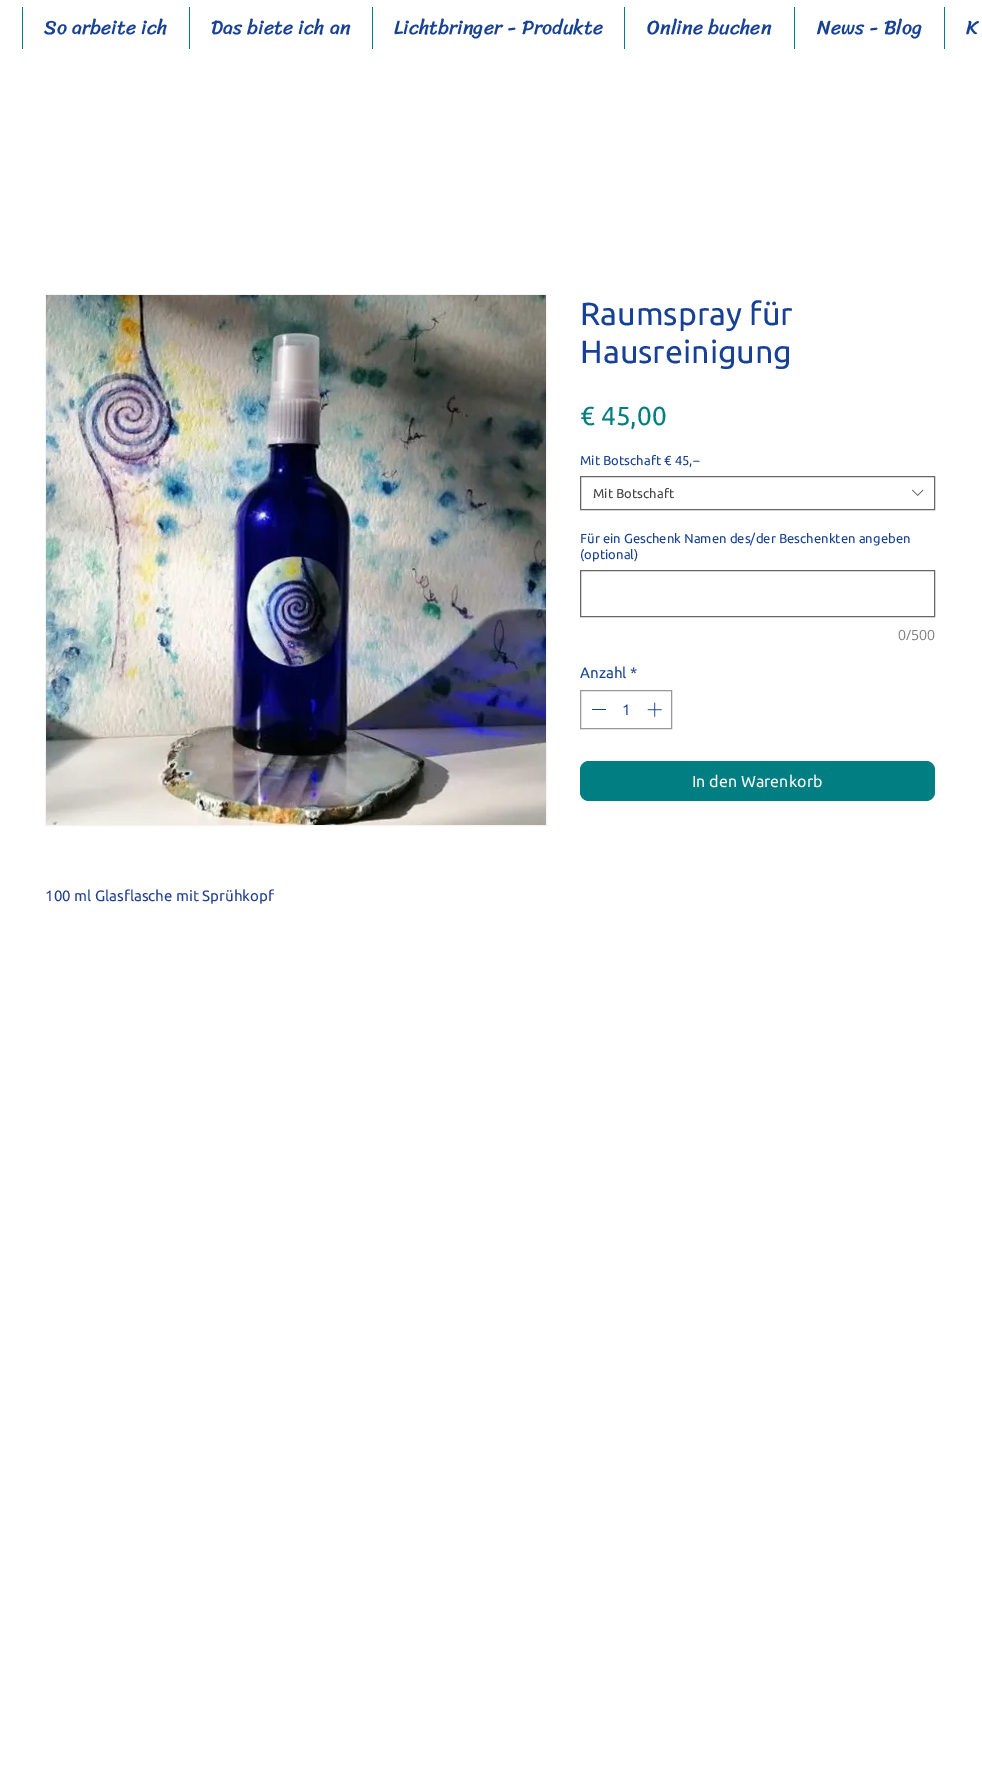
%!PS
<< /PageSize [982 1776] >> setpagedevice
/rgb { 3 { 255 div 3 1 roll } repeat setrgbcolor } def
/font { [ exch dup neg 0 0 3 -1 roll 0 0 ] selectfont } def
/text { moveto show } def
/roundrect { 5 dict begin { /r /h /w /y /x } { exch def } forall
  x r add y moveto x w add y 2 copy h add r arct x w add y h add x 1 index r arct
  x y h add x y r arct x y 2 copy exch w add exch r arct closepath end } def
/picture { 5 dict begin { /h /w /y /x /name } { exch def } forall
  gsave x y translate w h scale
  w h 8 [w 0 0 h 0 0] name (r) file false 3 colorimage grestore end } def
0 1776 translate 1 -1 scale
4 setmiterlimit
255 255 255 rgb
0 0 982 1776 rectfill
0 126 129 rgb
22 7 1 42 rectfill
189 7 1 42 rectfill
372 7 1 42 rectfill
624 7 1 42 rectfill
794 7 1 42 rectfill
944 7 1 42 rectfill
102 102 102 rgb
580.5 476.5 354 33 rectstroke
(img_01.rgb) 912 489 12 7 picture
580.5 570.5 354 46 rectstroke
152 152 152 rgb
580.5 690.5 91 38 rectstroke
22 65 148 rgb
592 709 14 1 rectfill
(img_02.rgb) 647 702 15 15 picture
0 126 129 rgb
580 761 355 40 9 roundrect fill
244 244 244 rgb
45.5 294.5 501 531 rectstroke
(img_03.rgb) 46 295 500 530 picture
/Sriracha-Regular 20 font
22 65 148 rgb
(So arbeite ich) 44 34 text
(Das biete ich an) 211 34 text
(Lichtbringer - Produkte) 394 34 text
(Online buchen) 647 34 text
(News - Blog) 817 34 text
(K) 966 34 text
/Ubuntu-Regular 32 font
(Raumspray für) 580 325 text
(Hausreinigung) 580 363 text
/Ubuntu-Regular 26 font
0 126 129 rgb
(€ 45,00) 580 425 text
/Ubuntu-Regular 13 font
22 65 148 rgb
(Mit Botschaft € 45,--) 580 465 text
68 68 68 rgb
(Mit Botschaft) 593 498 text
22 65 148 rgb
(Für ein Geschenk Namen des/der Beschenkten angeben) 580 543 text
(\(optional\)) 580 559 text
/OpenSans-Regular 14 font
126 126 126 rgb
(0/500) 898 640 text
/Ubuntu-Regular 15 font
22 65 148 rgb
(Anzahl) 580 678 text
(*) 630 678 text
(1) 622 715 text
/Ubuntu-Regular 16 font
255 255 255 rgb
(In den Warenkorb) 692 787 text
/Ubuntu-Regular 15 font
33 63 146 rgb
(100 ml Glasflasche mit Sprühkopf) 45 901 text
showpage
